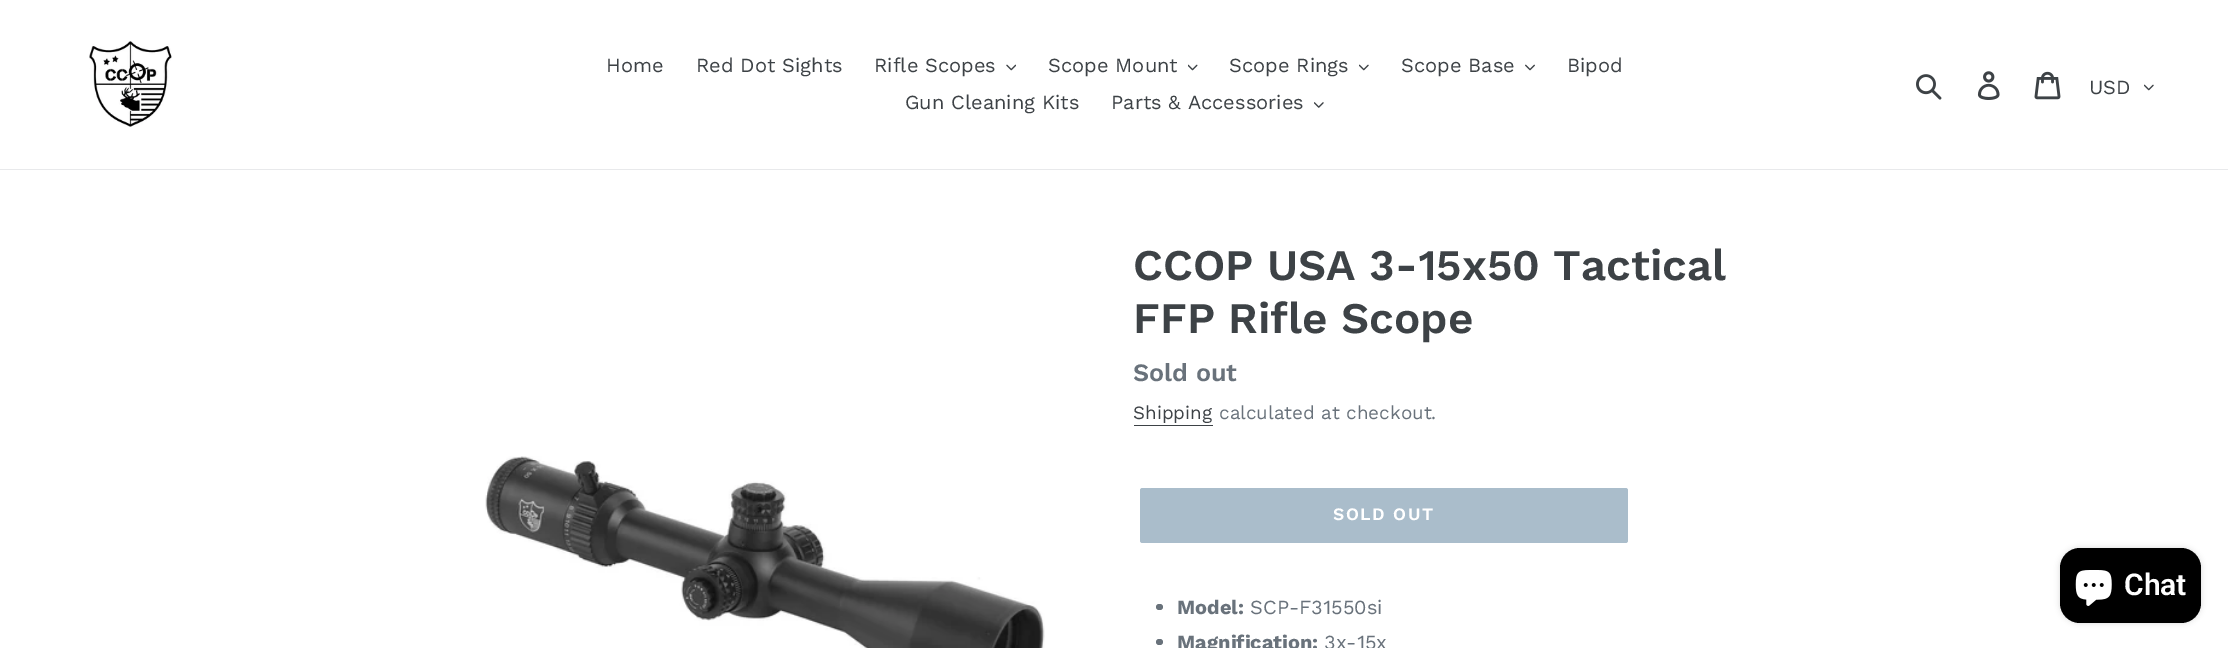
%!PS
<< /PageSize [2228 648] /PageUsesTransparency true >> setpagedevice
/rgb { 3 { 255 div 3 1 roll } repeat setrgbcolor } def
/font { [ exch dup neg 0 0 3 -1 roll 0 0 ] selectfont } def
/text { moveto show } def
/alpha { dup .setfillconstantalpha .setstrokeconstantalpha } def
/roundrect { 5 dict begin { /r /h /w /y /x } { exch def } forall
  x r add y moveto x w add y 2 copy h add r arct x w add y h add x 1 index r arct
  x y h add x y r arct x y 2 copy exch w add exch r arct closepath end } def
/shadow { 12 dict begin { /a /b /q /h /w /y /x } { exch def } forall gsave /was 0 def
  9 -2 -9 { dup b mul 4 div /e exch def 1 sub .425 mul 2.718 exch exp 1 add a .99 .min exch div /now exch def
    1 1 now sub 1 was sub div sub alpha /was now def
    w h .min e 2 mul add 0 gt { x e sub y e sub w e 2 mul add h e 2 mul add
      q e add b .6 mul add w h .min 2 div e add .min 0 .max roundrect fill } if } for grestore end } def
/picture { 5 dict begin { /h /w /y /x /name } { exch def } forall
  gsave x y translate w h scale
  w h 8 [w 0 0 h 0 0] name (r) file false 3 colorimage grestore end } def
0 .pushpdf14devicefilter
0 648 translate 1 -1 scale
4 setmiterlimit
255 255 255 rgb
0 0 2228 648 rectfill
232 233 235 rgb
0 169 2228 1 rectfill
(img_01.rgb) 89 41 83 86 picture
(img_02.rgb) 1006 64 10 7 picture
(img_03.rgb) 1188 64 10 7 picture
(img_04.rgb) 1359 64 10 7 picture
(img_05.rgb) 1525 64 10 7 picture
(img_06.rgb) 1314 102 10 6 picture
(img_07.rgb) 1916 74 26 26 picture
(img_08.rgb) 1977 71 23 29 picture
(img_09.rgb) 2034 71 27 29 picture
(img_04.rgb) 2144 84 10 7 picture
(img_10.rgb) 485 456 560 192 picture
61 66 70 rgb
1134 425 79 1 rectfill
170 189 203 rgb
1140 488 488 55 2.5 roundrect fill
105 114 123 rgb
1156 604 7 6 3 roundrect fill
1156 639 7 6 3 roundrect fill
0 0 0 rgb
2060 548 141 75 20 3 0.15 shadow
2060 548 141 75 20 roundrect fill
(img_11.rgb) 2075 570 37 36 picture
/WorkSans-Regular 20 font
61 66 70 rgb
(Home) 606 72 text
(Red Dot Sights) 696 72 text
(Rifle Scopes) 874 72 text
(Scope Mount) 1048 72 text
(Scope Rings) 1229 72 text
(Scope Base) 1401 72 text
(Bipod) 1567 72 text
(Gun Cleaning Kits) 905 109 text
(Parts & Accessories) 1111 109 text
(USD) 2089 94 text
/WorkSans-SemiBold 43.75 font
(CCOP USA 3-15x50 Tactical) 1133 280 text
(FFP Rifle Scope) 1133 333 text
/WorkSans-SemiBold 25 font
105 114 123 rgb
(Sold out) 1133 381 text
/WorkSans-Regular 18.75 font
61 66 70 rgb
(Shipping) 1133 419 text
105 114 123 rgb
(calculated at checkout.) 1219 419 text
/WorkSans-SemiBold 17.5 font
255 255 255 rgb
1333 520 moveto 1.5 0 (SOLD OUT) ashow
/WorkSans-Bold 20 font
105 114 123 rgb
(Model:) 1177 614 text
/WorkSans-Regular 20 font
(SCP-F31550si) 1250 614 text
/WorkSans-Bold 20 font
(Magnification:) 1177 649 text
/WorkSans-Regular 20 font
(3x-15x) 1324 649 text
/Roboto-SemiBold 30 font
255 255 255 rgb
(Chat) 2124 595 text
.poppdf14devicefilter showpage
